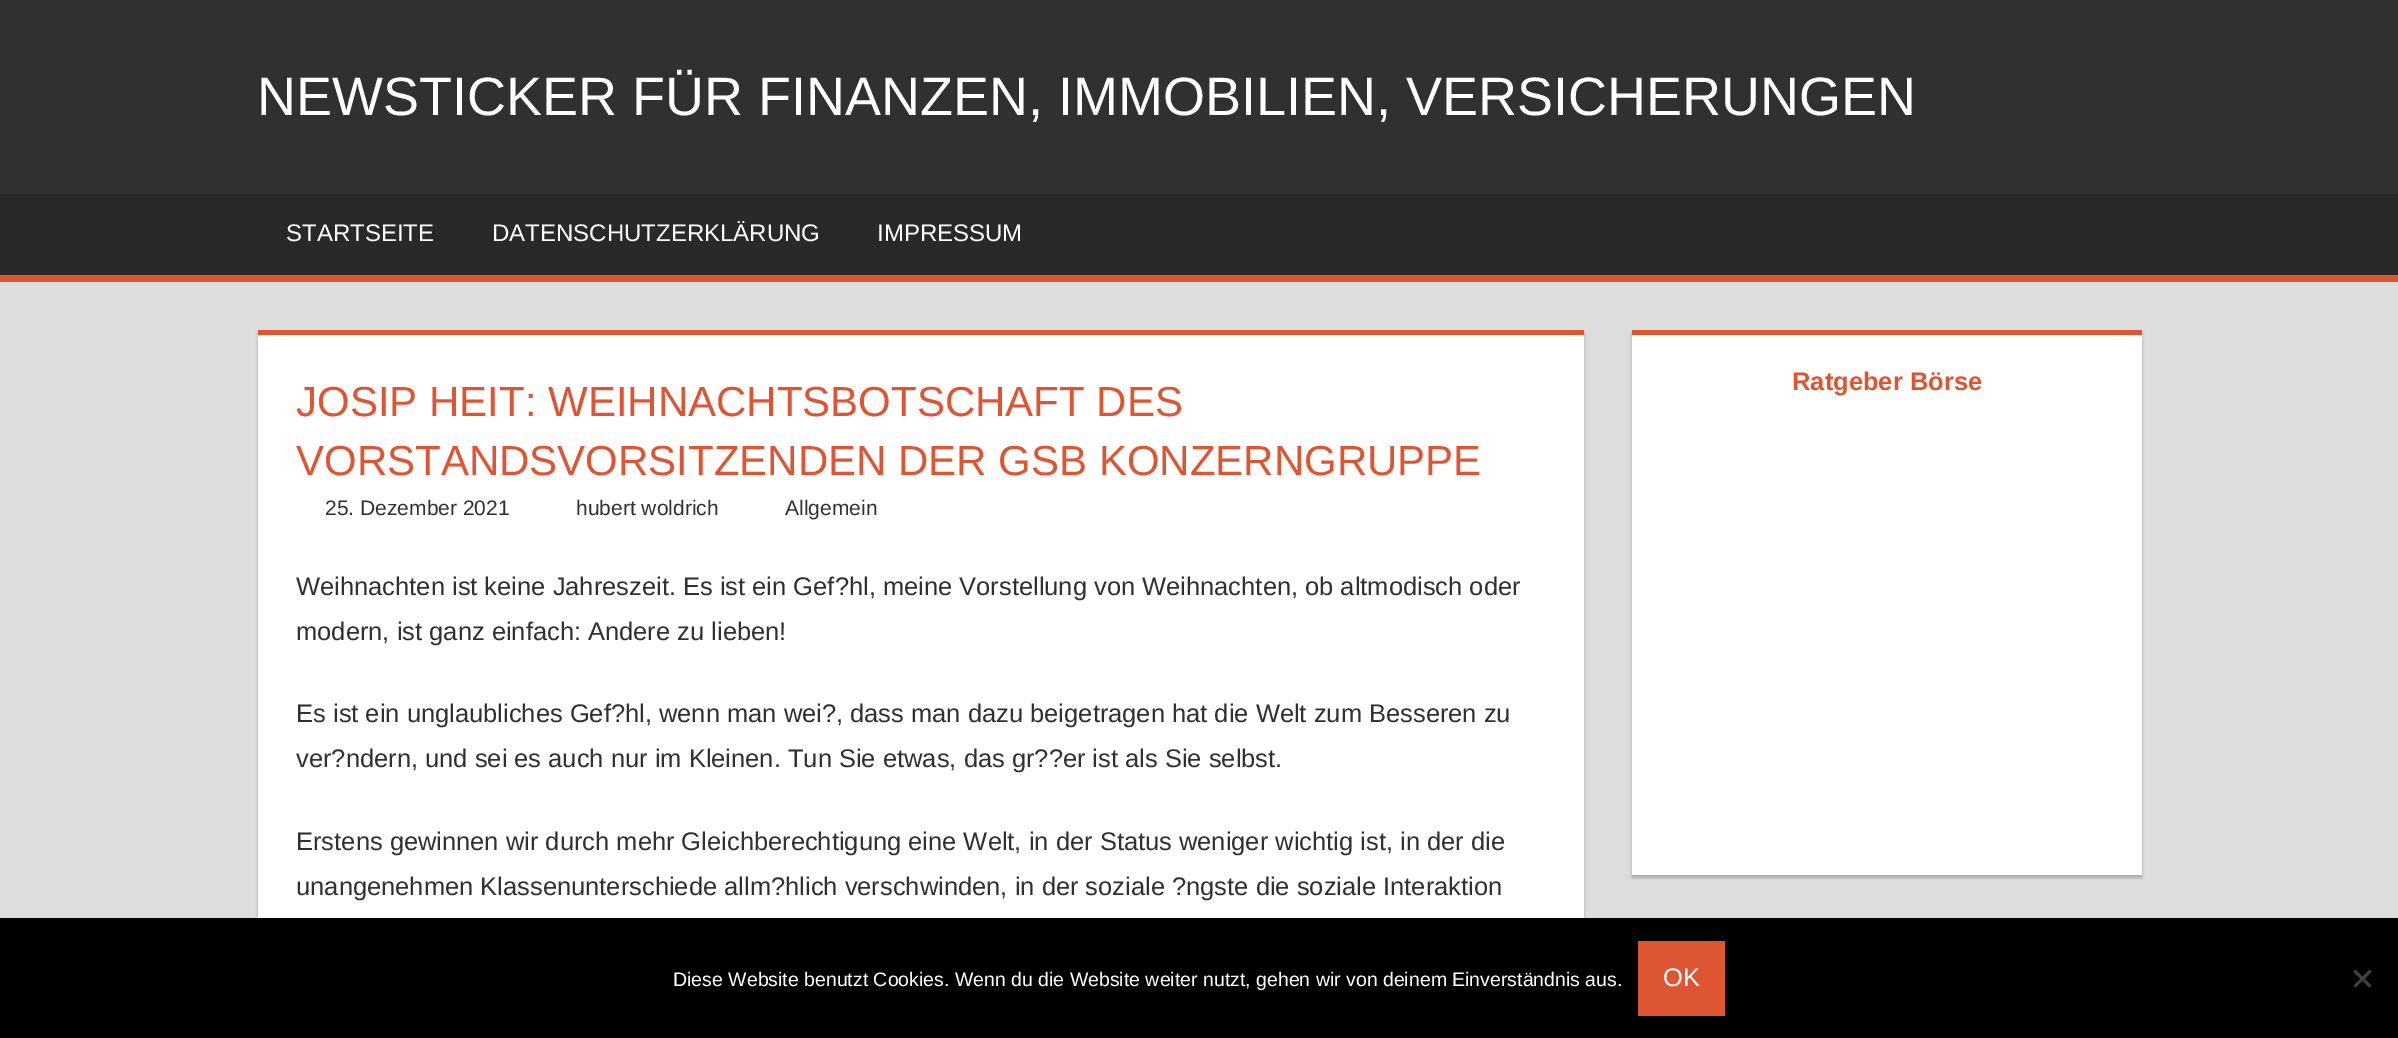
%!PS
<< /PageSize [2398 1038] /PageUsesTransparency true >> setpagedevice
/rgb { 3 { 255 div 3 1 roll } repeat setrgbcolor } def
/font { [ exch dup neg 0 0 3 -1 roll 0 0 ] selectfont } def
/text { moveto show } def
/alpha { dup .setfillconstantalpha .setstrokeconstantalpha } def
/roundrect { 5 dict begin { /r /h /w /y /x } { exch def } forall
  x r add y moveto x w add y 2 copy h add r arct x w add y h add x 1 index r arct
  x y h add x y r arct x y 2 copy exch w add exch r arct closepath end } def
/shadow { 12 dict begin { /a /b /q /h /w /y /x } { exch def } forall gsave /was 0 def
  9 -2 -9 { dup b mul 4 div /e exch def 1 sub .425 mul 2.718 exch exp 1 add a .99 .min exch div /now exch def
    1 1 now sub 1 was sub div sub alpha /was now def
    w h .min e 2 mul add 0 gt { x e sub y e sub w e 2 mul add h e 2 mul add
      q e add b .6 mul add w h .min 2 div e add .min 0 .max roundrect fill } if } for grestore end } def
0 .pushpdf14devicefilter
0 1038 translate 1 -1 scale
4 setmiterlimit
221 221 221 rgb
0 0 2398 1038 rectfill
48 48 48 rgb
0 0 2398 194 rectfill
41 41 41 rgb
0 196 2398 79 rectfill
39 39 39 rgb
0 194 2398 2 rectfill
221 85 51 rgb
0 275 2398 7 rectfill
170 170 170 rgb
1632 333 510 545 0 1.5 1 shadow
255 255 255 rgb
1632 335 510 540 rectfill
221 85 51 rgb
1632 330 510 5 rectfill
170 170 170 rgb
258 333 1326 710 0 1.5 1 shadow
255 255 255 rgb
258 335 1326 583 rectfill
221 85 51 rgb
258 330 1326 5 rectfill
0 0 0 rgb
0 918 2398 120 rectfill
221 85 51 rgb
1638 941 87 75 rectfill
64 64 64 rgb
2369.5 969.5 moveto 2 2.5 rlineto -16 15.5 rlineto -2 -2 rlineto closepath fill
2353.5 972 moveto 2 -2.5 rlineto 16 16 rlineto -2 2 rlineto closepath fill
/LiberationSans-Regular 54 font
255 255 255 rgb
(NEWSTICKER FÜR FINANZEN, IMMOBILIEN, VERSICHERUNGEN) 257 115 text
/LiberationSans-Regular 24 font
(STARTSEITE) 286 241 text
(DATENSCHUTZERKLÄRUNG) 492 241 text
(IMPRESSUM) 877 241 text
/LiberationSans-Bold 25.5 font
221 85 51 rgb
(Ratgeber Börse) 1792 390 text
/LiberationSans-Regular 42 font
(JOSIP HEIT: WEIHNACHTSBOTSCHAFT DES) 296 416 text
(VORSTANDSVORSITZENDEN DER GSB KONZERNGRUPPE) 296 475 text
/LiberationSans-Regular 21 font
48 48 48 rgb
(25. Dezember 2021) 325 515 text
(hubert woldrich) 576 515 text
(Allgemein) 785 515 text
/LiberationSans-Regular 25.5 font
(Weihnachten ist keine Jahreszeit. Es ist ein Gef?hl, meine Vorstellung von Weihnachten, ob altmodisch oder) 296 595 text
(modern, ist ganz einfach: Andere zu lieben!) 296 640 text
(Es ist ein unglaubliches Gef?hl, wenn man wei?, dass man dazu beigetragen hat die Welt zum Besseren zu) 296 722 text
(ver?ndern, und sei es auch nur im Kleinen. Tun Sie etwas, das gr??er ist als Sie selbst.) 296 767 text
(Erstens gewinnen wir durch mehr Gleichberechtigung eine Welt, in der Status weniger wichtig ist, in der die) 296 850 text
(unangenehmen Klassenunterschiede allm?hlich verschwinden, in der soziale ?ngste die soziale Interaktion) 296 895 text
/LiberationSans-Regular 19.5 font
255 255 255 rgb
(Diese Website benutzt Cookies. Wenn du die Website weiter nutzt, gehen wir von deinem Einverständnis aus.) 673 986 text
/LiberationSans-Regular 25.5 font
(OK) 1663 986 text
.poppdf14devicefilter showpage
